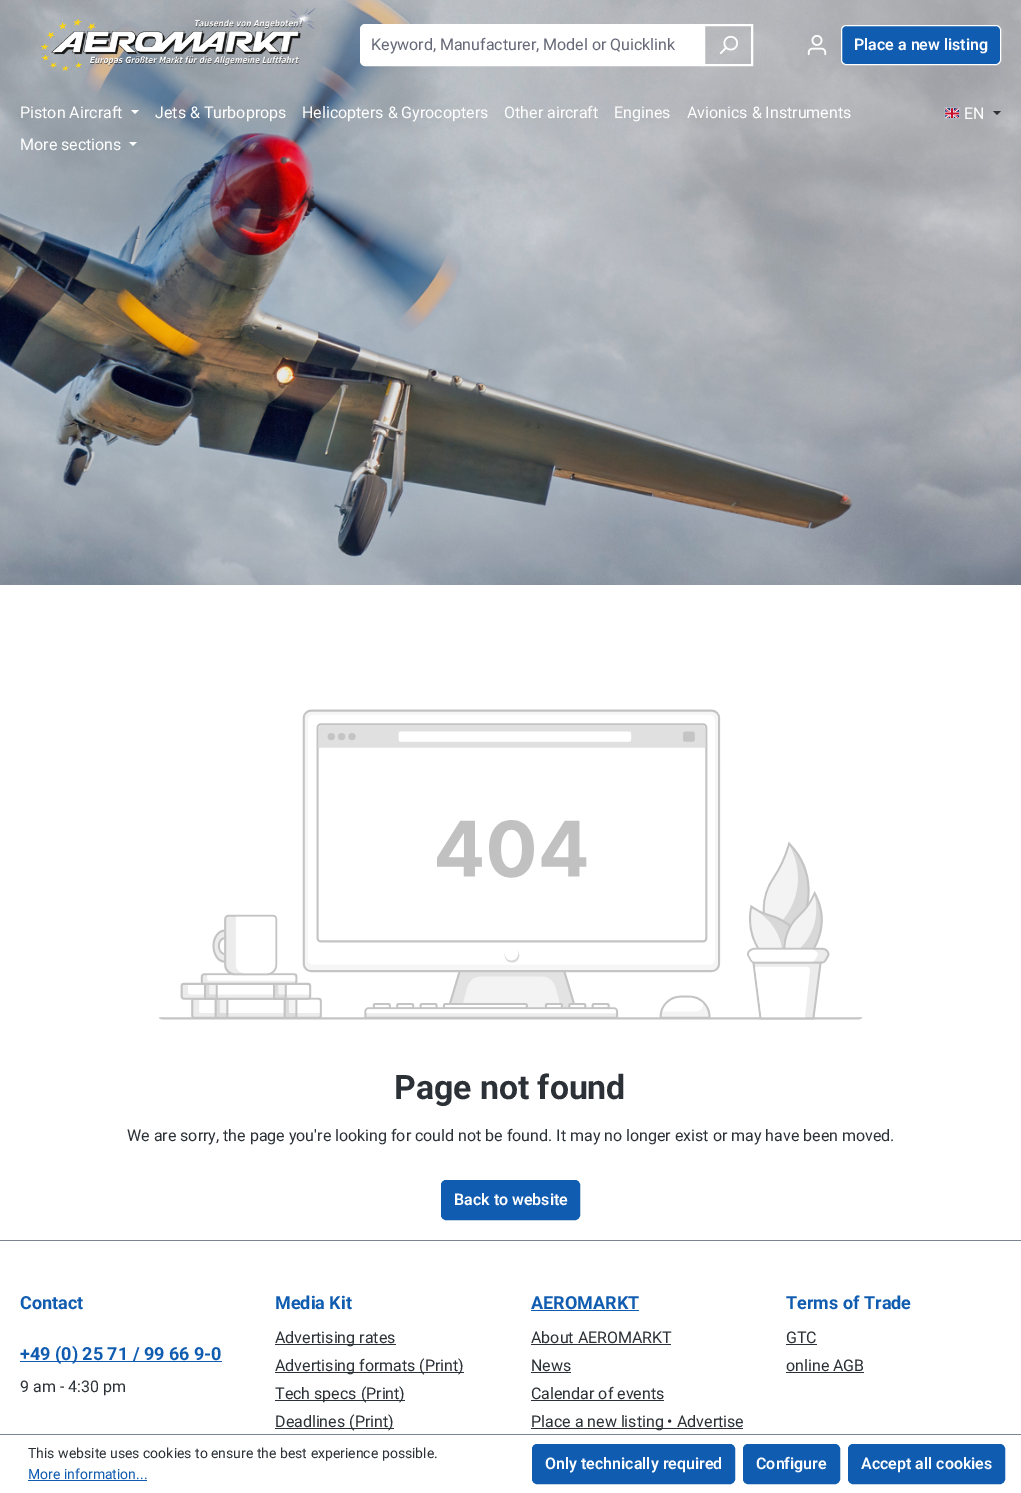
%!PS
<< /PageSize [1021 1493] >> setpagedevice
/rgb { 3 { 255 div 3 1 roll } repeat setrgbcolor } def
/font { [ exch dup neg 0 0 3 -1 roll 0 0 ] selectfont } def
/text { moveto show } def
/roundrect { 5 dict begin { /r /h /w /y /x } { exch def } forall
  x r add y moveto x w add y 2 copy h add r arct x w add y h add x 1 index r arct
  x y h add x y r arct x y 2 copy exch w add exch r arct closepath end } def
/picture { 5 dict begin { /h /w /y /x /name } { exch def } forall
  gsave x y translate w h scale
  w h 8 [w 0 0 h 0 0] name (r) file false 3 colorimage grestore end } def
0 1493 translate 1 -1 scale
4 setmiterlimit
255 255 255 rgb
0 0 1021 1493 rectfill
(img_01.rgb) 0 0 1021 585 picture
(img_02.rgb) 40 8 276 63 picture
365 25 moveto 338 0 rlineto 0 40 rlineto -338 0 rlineto -2 0 -4 -2 -4 -4 rcurveto 0 -32 rlineto 0 -2 2 -4 4 -4 rcurveto closepath gsave fill grestore
2 setlinewidth
stroke
704 25 48 40 rectstroke
(img_03.rgb) 719 35 19 20 picture
(img_04.rgb) 807 35 20 21 picture
16 92 176 rgb
841.5 25.5 159 39 4.5 roundrect gsave fill grestore
255 255 255 rgb
1 setlinewidth
stroke
131 110 moveto 8 0 rlineto -4 4 rlineto closepath fill
129 142 moveto 8 0 rlineto -4 4 rlineto closepath fill
(img_05.rgb) 945 108 14 10 picture
173 181 189 rgb
944.5 107.5 15 11 rectstroke
43 49 54 rgb
993 111 moveto 8 0 rlineto -4 4 rlineto closepath fill
(img_06.rgb) 159 709 704 311 picture
16 92 176 rgb
441.5 1180.5 138 39 4.5 roundrect gsave fill grestore
stroke
121 132 144 rgb
0 1240 1021 1 rectfill
16 92 176 rgb
20 1361 202 1 rectfill
43 49 54 rgb
275 1344 121 1 rectfill
275 1372 189 1 rectfill
275 1400 130 1 rectfill
275 1428 119 1 rectfill
16 92 176 rgb
531 1310 108 1 rectfill
43 49 54 rgb
531 1344 140 1 rectfill
531 1372 40 1 rectfill
531 1400 133 1 rectfill
531 1428 212 1 rectfill
786 1344 31 1 rectfill
786 1372 78 1 rectfill
121 132 144 rgb
0 1434 1021 1 rectfill
16 92 176 rgb
28 1480 119 1 rectfill
532.5 1444.5 202 39 4.5 roundrect gsave fill grestore
stroke
743.5 1444.5 96 39 4.5 roundrect gsave fill grestore
stroke
848.5 1444.5 156 39 4.5 roundrect gsave fill grestore
stroke
/Roboto-Regular 16 font
102 105 119 rgb
(Keyword, Manufacturer, Model or Quicklink) 371 50 text
/Roboto-SemiBold 16 font
255 255 255 rgb
(Place a new listing) 854 50 text
/Roboto-Regular 16 font
(Piston Aircraft) 20 118 text
(Jets & Turboprops) 155 118 text
(Helicopters & Gyrocopters) 302 118 text
(Other aircraft) 504 118 text
(Engines) 614 118 text
(Avionics & Instruments) 687 118 text
(More sections) 20 150 text
(EN) 964 119 text
/Roboto-Bold 33.75 font
43 49 54 rgb
(Page not found) 394 1099 text
/Roboto-Regular 16 font
(We are sorry, the page you're looking for could not be found. It may no longer exist or may have been moved.) 127 1141 text
/Roboto-SemiBold 16 font
255 255 255 rgb
(Back to website) 454 1205 text
/Roboto-Bold 18 font
16 92 176 rgb
(Contact) 20 1309 text
(+49 \(0\) 25 71 / 99 66 9-0) 20 1360 text
/Roboto-Regular 16 font
43 49 54 rgb
(9 am - 4:30 pm) 20 1392 text
/Roboto-Bold 18 font
16 92 176 rgb
(Media Kit) 275 1309 text
/Roboto-Regular 16 font
43 49 54 rgb
(Advertising rates) 275 1343 text
(Advertising formats \(Print\)) 275 1371 text
(Tech specs \(Print\)) 275 1399 text
(Deadlines \(Print\)) 275 1427 text
/Roboto-Bold 18 font
16 92 176 rgb
(AEROMARKT) 531 1309 text
/Roboto-Regular 16 font
43 49 54 rgb
(About AEROMARKT) 531 1343 text
(News) 531 1371 text
(Calendar of events) 531 1399 text
(Place a new listing • Advertise) 531 1427 text
/Roboto-Bold 18 font
16 92 176 rgb
(Terms of Trade) 786 1309 text
/Roboto-Regular 16 font
43 49 54 rgb
(GTC) 786 1343 text
(online AGB) 786 1371 text
/Roboto-Regular 14 font
(This website uses cookies to ensure the best experience possible.) 28 1458 text
16 92 176 rgb
(More information...) 28 1479 text
/Roboto-SemiBold 16 font
255 255 255 rgb
(Only technically required) 545 1469 text
(Configure) 756 1469 text
(Accept all cookies) 861 1469 text
showpage
